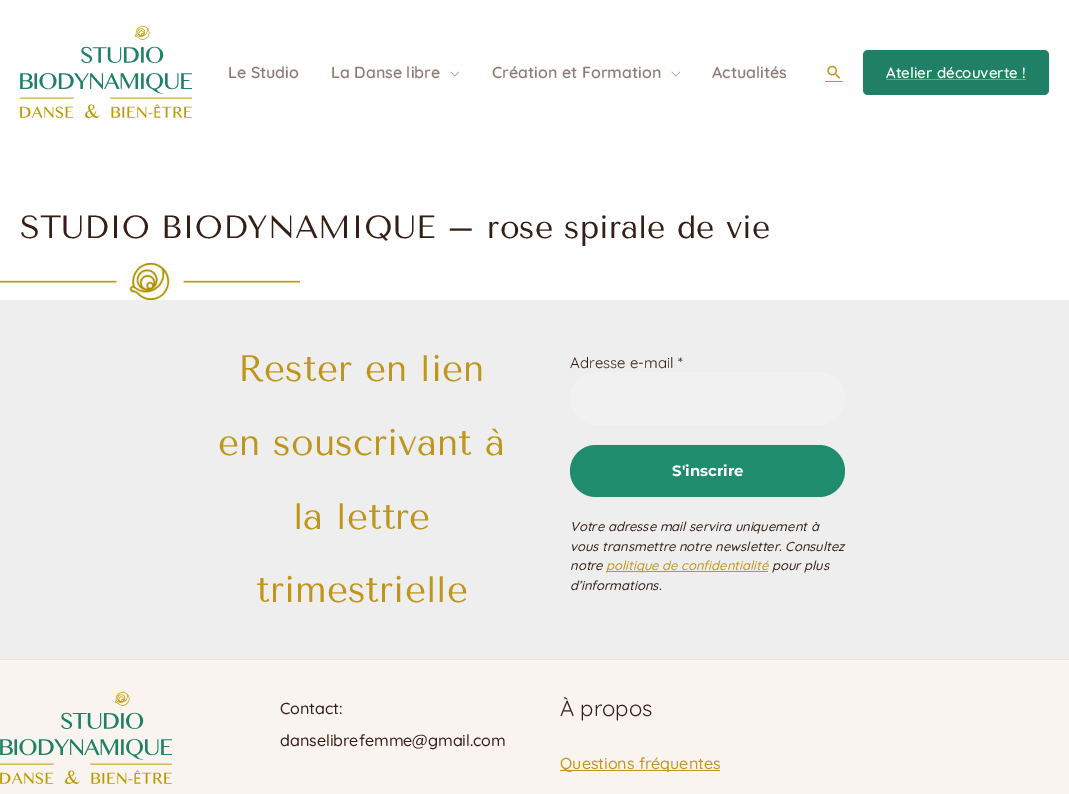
%!PS
<< /PageSize [1069 794] >> setpagedevice
/rgb { 3 { 255 div 3 1 roll } repeat setrgbcolor } def
/font { [ exch dup neg 0 0 3 -1 roll 0 0 ] selectfont } def
/text { moveto show } def
/roundrect { 5 dict begin { /r /h /w /y /x } { exch def } forall
  x r add y moveto x w add y 2 copy h add r arct x w add y h add x 1 index r arct
  x y h add x y r arct x y 2 copy exch w add exch r arct closepath end } def
/picture { 5 dict begin { /h /w /y /x /name } { exch def } forall
  gsave x y translate w h scale
  w h 8 [w 0 0 h 0 0] name (r) file false 3 colorimage grestore end } def
0 794 translate 1 -1 scale
4 setmiterlimit
255 255 255 rgb
0 0 1069 794 rectfill
(img_01.rgb) 20 26 172 92 picture
(img_02.rgb) 450 71 9 6 picture
(img_02.rgb) 671 71 9 6 picture
191 150 27 rgb
825 81 18 1 rectfill
(img_03.rgb) 827 65 14 14 picture
31 128 101 rgb
863 50 186 45 5 roundrect fill
191 150 27 rgb
886 79 140 1 rectfill
(img_04.rgb) 0 263 300 37 picture
238 238 238 rgb
0 300 1069 359 rectfill
241 241 241 rgb
570 372 275 53 26.5 roundrect fill
32 140 110 rgb
570 445 275 52 26 roundrect fill
191 150 27 rgb
606 571 162 1 rectfill
250 244 241 rgb
0 660 1069 134 rectfill
230 230 230 rgb
0 659 1069 1 rectfill
(img_05.rgb) 0 692 172 92 picture
191 150 27 rgb
560 770 160 1 rectfill
/Quicksand-SemiBold 16 font
141 123 116 rgb
(Le Studio) 228 78 text
(La Danse libre) 331 78 text
(Création et Formation) 492 78 text
(Actualités) 712 78 text
/Quicksand-SemiBold 15 font
255 255 255 rgb
(Atelier découverte !) 886 78 text
/TenorSans-Regular 32 font
53 30 21 rgb
(STUDIO BIODYNAMIQUE – rose spirale de vie) 20 238 text
/TenorSans-Regular 36.75 font
191 150 27 rgb
(Rester en lien) 238 381 text
(en souscrivant à) 218 455 text
(la lettre) 293 529 text
(trimestrielle) 256 602 text
/Quicksand-Regular 15 font
53 30 21 rgb
(Adresse e-mail *) 570 368 text
/Montserrat-Bold 15 font
255 255 255 rgb
(S'inscrire) 672 476 text
/Quicksand-MediumItalic 13 font
53 30 21 rgb
(Votre adresse mail servira uniquement à) 570 531 text
(vous transmettre notre newsletter. Consultez) 570 551 text
(notre) 570 570 text
191 150 27 rgb
(politique de confidentialité) 606 570 text
53 30 21 rgb
(pour plus) 772 570 text
(d’informations.) 570 590 text
/Quicksand-Medium 16 font
(Contact:) 280 714 text
(danselibrefemme@gmail.com) 280 746 text
/Quicksand-Regular 22 font
(À propos) 560 716 text
/Quicksand-Medium 16 font
191 150 27 rgb
(Questions fréquentes) 560 769 text
showpage
